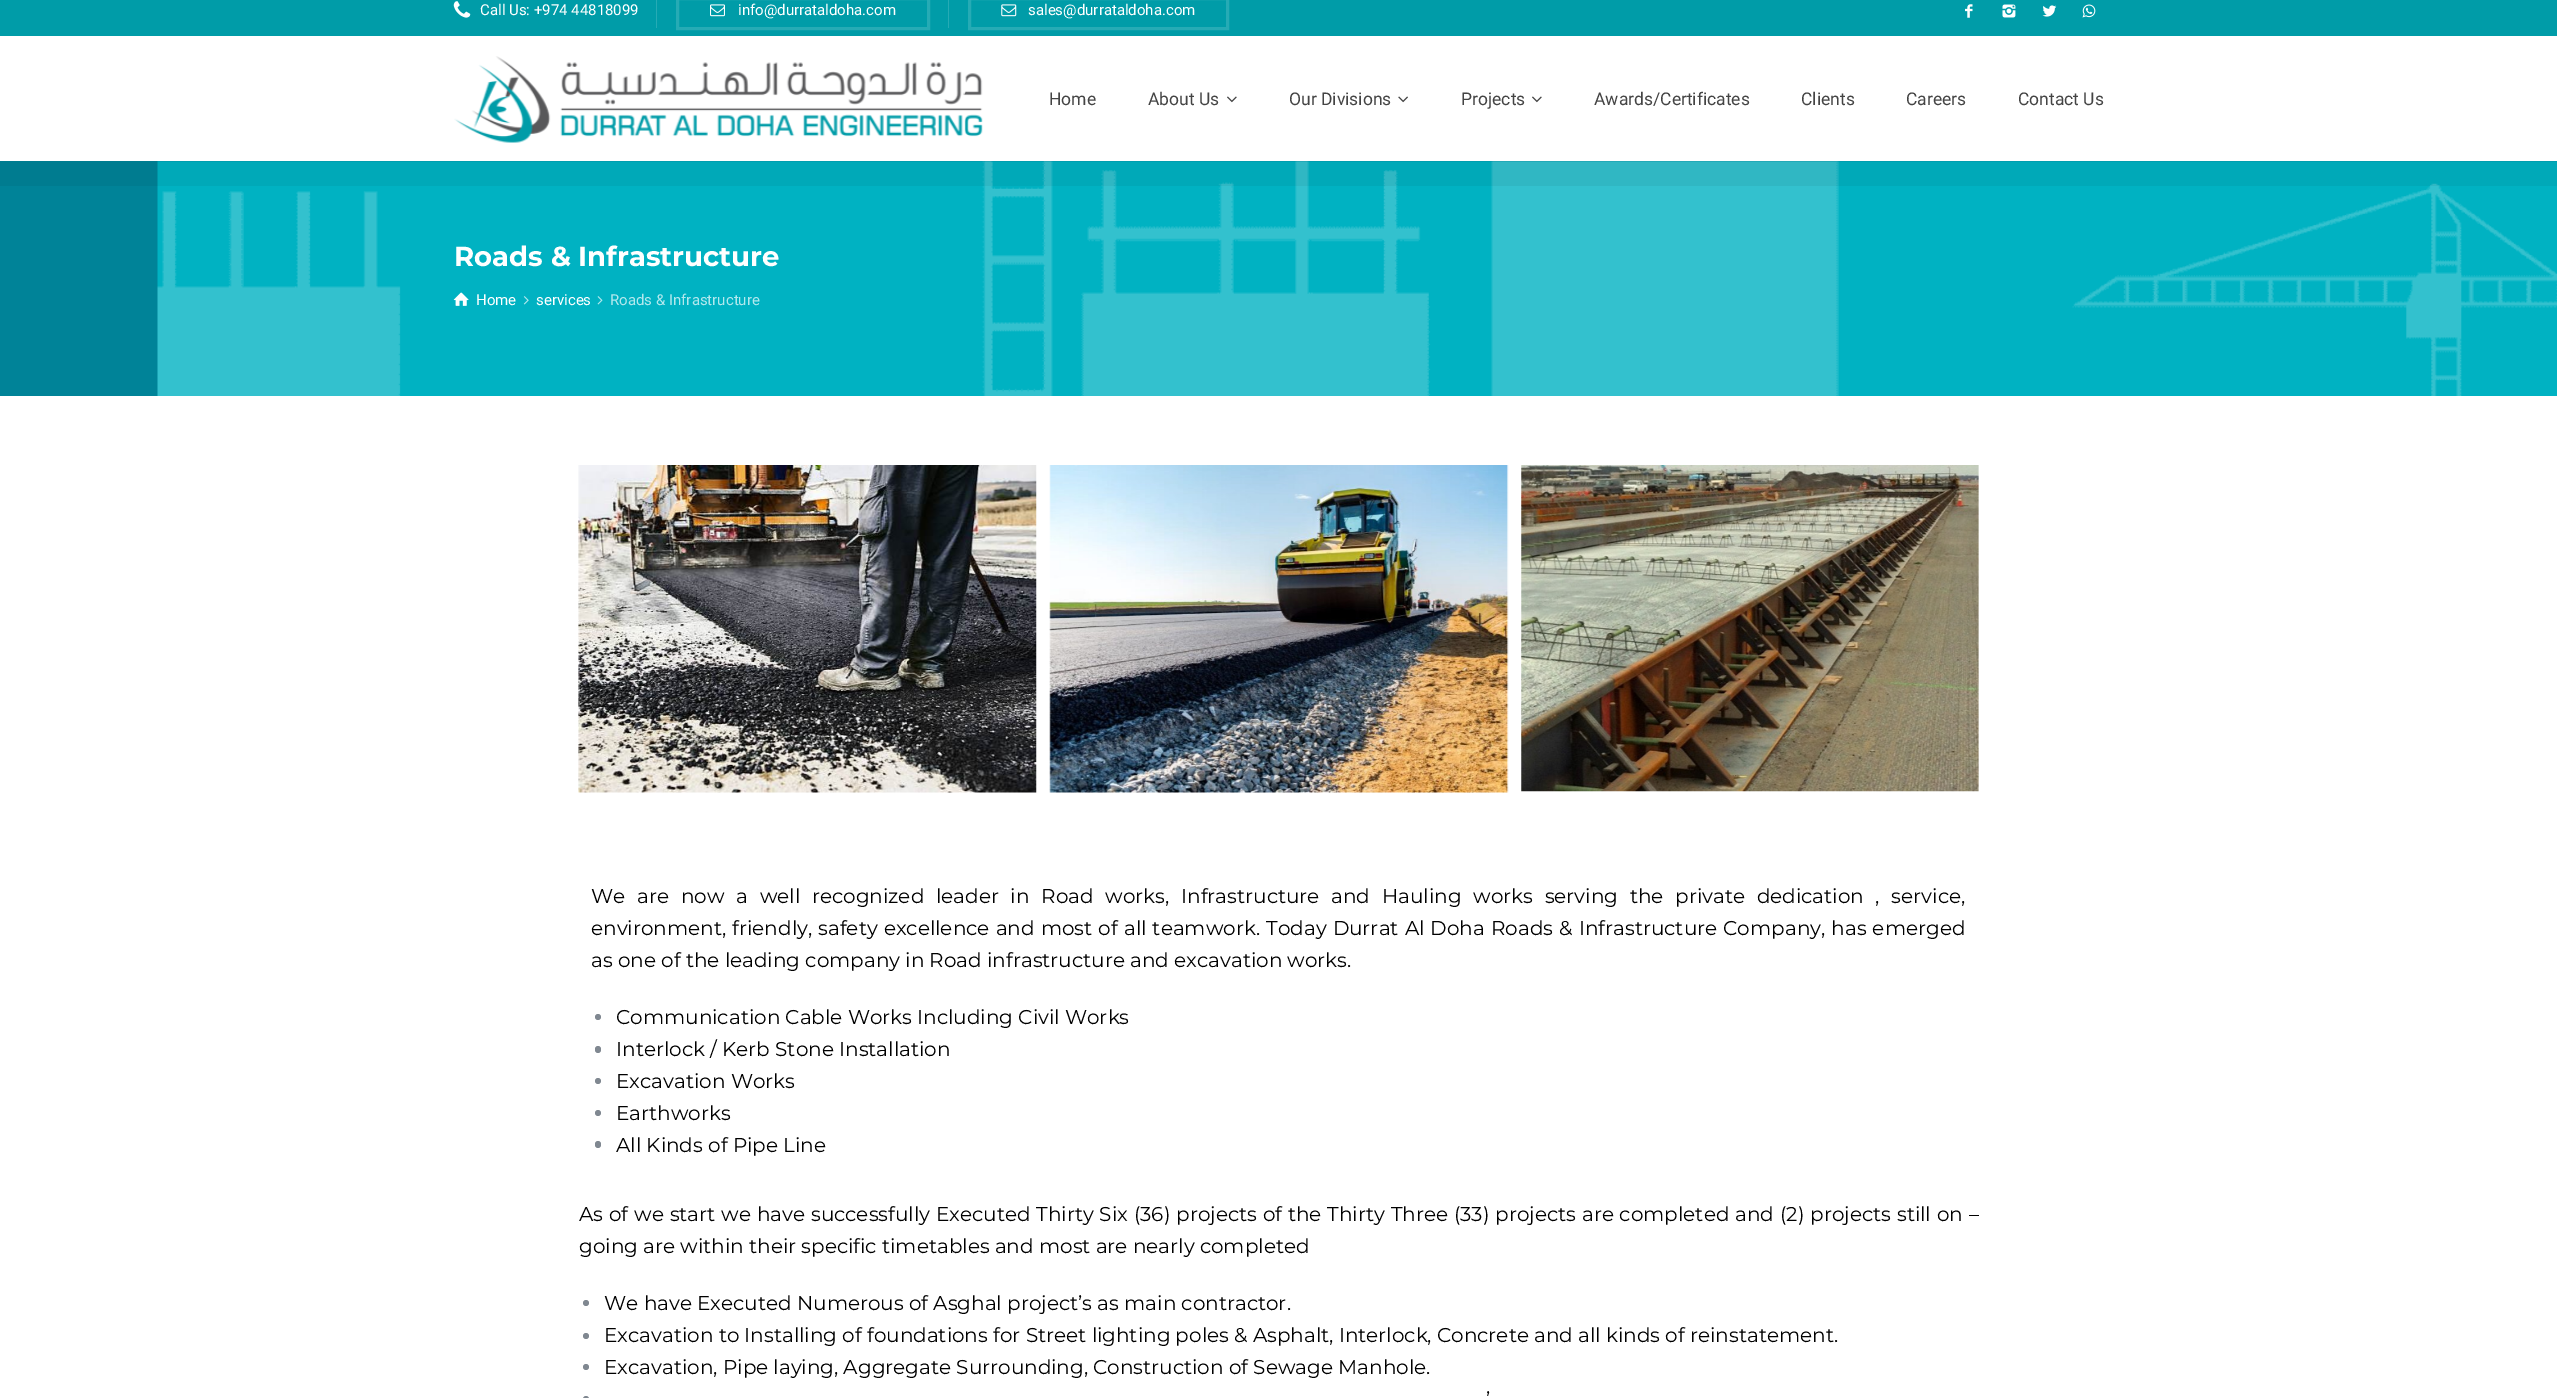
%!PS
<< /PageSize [2557 1398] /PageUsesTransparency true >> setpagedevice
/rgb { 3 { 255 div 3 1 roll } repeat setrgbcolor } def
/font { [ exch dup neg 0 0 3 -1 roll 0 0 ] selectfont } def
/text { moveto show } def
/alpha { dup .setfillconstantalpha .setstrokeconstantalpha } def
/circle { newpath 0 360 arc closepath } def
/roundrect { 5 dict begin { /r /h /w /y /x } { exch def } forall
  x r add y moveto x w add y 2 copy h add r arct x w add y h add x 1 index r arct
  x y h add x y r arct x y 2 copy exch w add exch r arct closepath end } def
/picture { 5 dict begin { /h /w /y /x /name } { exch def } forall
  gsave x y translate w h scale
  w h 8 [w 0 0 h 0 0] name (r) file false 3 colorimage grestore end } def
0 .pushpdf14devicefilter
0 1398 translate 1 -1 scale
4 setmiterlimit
255 255 255 rgb
0 0 2557 1398 rectfill
0 156 168 rgb
0 0 2557 36 rectfill
(img_01.rgb) 453 1 18 17 picture
38 171 181 rgb
656 0 1 28 rectfill
3 setlinewidth
677.5 -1.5 251 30 rectstroke
(img_02.rgb) 710 4 15 13 picture
948 0 1 28 rectfill
969.5 -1.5 258 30 rectstroke
(img_03.rgb) 1001 4 16 13 picture
(img_04.rgb) 1965 4 8 14 picture
(img_05.rgb) 2002 4 14 14 picture
(img_06.rgb) 2042 5 15 12 picture
(img_07.rgb) 2082 4 14 14 picture
(img_08.rgb) 454 56 529 87 picture
(img_09.rgb) 1227 96 10 7 picture
(img_10.rgb) 1398 96 10 7 picture
(img_09.rgb) 1532 96 10 7 picture
0 131 152 rgb
0 161 2557 235 rectfill
(img_11.rgb) 157 161 2400 235 picture
0.05 alpha
0 0 0 rgb
0 161 2557 25 rectfill
1 alpha
(img_12.rgb) 453 292 16 14 picture
(img_13.rgb) 523 296 6 9 picture
(img_14.rgb) 597 296 6 9 picture
(img_15.rgb) 578 465 459 328 picture
(img_16.rgb) 1049 465 460 328 picture
(img_17.rgb) 1521 465 458 327 picture
128 136 145 rgb
598 1017 3 circle fill
595 1046 6 7 3 roundrect fill
598 1081 3 circle fill
598 1113 3 circle fill
595 1141 6 7 3 roundrect fill
586 1303 3 circle fill
586 1336 3 circle fill
586 1367 3 circle fill
583 1396 6 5 3 roundrect fill
/Roboto-Regular 15 font
255 255 255 rgb
(Call Us: +974 44818099) 480 15 text
(info@durrataldoha.com) 738 15 text
(sales@durrataldoha.com) 1028 15 text
/Roboto-Regular 17.5 font
68 68 68 rgb
(Home) 1049 105 text
(About Us) 1148 105 text
(Our Divisions) 1289 105 text
(Projects) 1461 105 text
(Awards/Certificates) 1594 105 text
(Clients) 1801 105 text
(Careers) 1906 105 text
(Contact Us) 2018 105 text
/Montserrat-Bold 27.5 font
255 255 255 rgb
(Roads & Infrastructure) 454 266 text
/Roboto-Regular 15 font
(Home) 476 305 text
(services) 536 305 text
179 232 237 rgb
(Roads & Infrastructure) 610 305 text
/Montserrat-Regular 20 font
0 0 0 rgb
591 903 moveto 6.5 0 32 (We are now a well recognized leader in Road works, Infrastructure and Hauling works serving the private dedication , service,) widthshow
591 935 moveto 0.9 0 32 (environment, friendly, safety excellence and most of all teamwork. Today Durrat Al Doha Roads & Infrastructure Company, has emerged) widthshow
(as one of the leading company in Road infrastructure and excavation works.) 591 967 text
(Communication Cable Works Including Civil Works) 616 1024 text
(Interlock / Kerb Stone Installation) 616 1056 text
(Excavation Works) 616 1088 text
(Earthworks) 616 1120 text
(All Kinds of Pipe Line) 616 1152 text
579 1221 moveto 0.6 0 32 (As of we start we have successfully Executed Thirty Six \(36\) projects of the Thirty Three \(33\) projects are completed and \(2\) projects still on –) widthshow
(going are within their specific timetables and most are nearly completed) 579 1253 text
(We have Executed Numerous of Asghal project’s as main contractor.) 604 1310 text
(Excavation to Installing of foundations for Street lighting poles & Asphalt, Interlock, Concrete and all kinds of reinstatement.) 604 1342 text
(Excavation, Pipe laying, Aggregate Surrounding, Construction of Sewage Manhole.) 604 1374 text
(’) 1486 1406 text
.poppdf14devicefilter showpage
